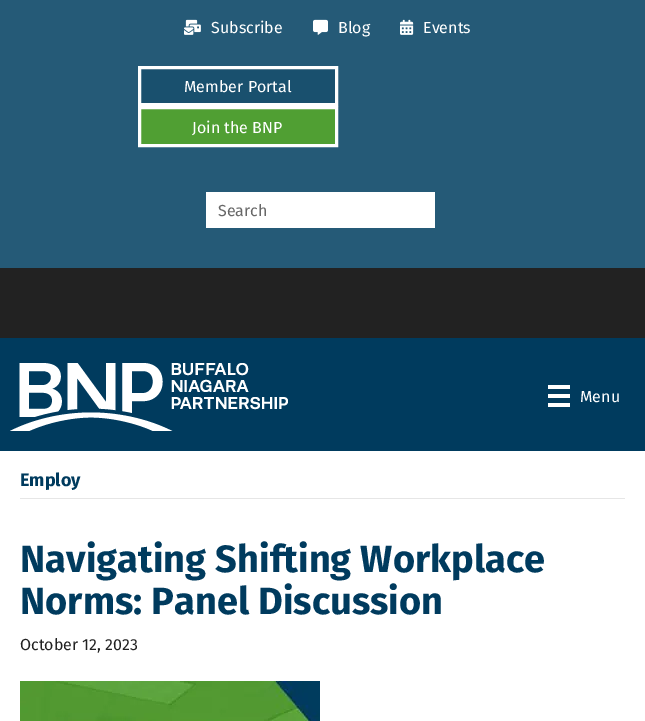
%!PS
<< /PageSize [645 721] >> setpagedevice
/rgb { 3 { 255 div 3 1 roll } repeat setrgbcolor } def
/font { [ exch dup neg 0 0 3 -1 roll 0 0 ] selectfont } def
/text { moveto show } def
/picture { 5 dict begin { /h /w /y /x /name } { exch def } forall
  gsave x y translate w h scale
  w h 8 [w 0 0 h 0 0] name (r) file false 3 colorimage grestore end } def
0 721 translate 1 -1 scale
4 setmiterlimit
34 34 34 rgb
0 0 645 721 rectfill
37 90 119 rgb
0 0 645 268 rectfill
(img_01.rgb) 184 19 17 16 picture
(img_02.rgb) 313 19 15 16 picture
(img_03.rgb) 400 19 14 16 picture
25 80 110 rgb
141 69 194 34 rectfill
255 255 255 rgb
3 setlinewidth
139.5 67.5 moveto 197 0 rlineto 0 37 rlineto -197 0 rlineto closepath stroke
80 159 51 rgb
141 109 194 35 rectfill
255 255 255 rgb
139.5 107.5 moveto 197 0 rlineto 0 38 rlineto -197 0 rlineto closepath stroke
206 192 229 36 rectfill
0 59 94 rgb
0 338 645 113 rectfill
(img_04.rgb) 10 363 278 68 picture
255 255 255 rgb
548 385 22 4 rectfill
548 394 22 4 rectfill
548 403 22 4 rectfill
0 451 645 270 rectfill
230 230 230 rgb
20 498 605 1 rectfill
(img_05.rgb) 20 681 300 40 picture
/FiraSans-Regular 16 font
255 255 255 rgb
(Subscribe) 211 33 text
(Blog) 338 33 text
(Events) 423 33 text
(Member Portal) 184 92 text
(Join the BNP) 192 133 text
103 103 103 rgb
(Search) 218 216 text
255 255 255 rgb
(Menu) 580 402 text
/FiraSans-Bold 18 font
0 59 94 rgb
(Employ) 20 486 text
/FiraSans-Bold 38 font
(Navigating Shifting Workplace) 20 572 text
(Norms: Panel Discussion) 20 614 text
/FiraSans-Regular 16 font
34 34 34 rgb
(October 12, 2023) 20 650 text
showpage
